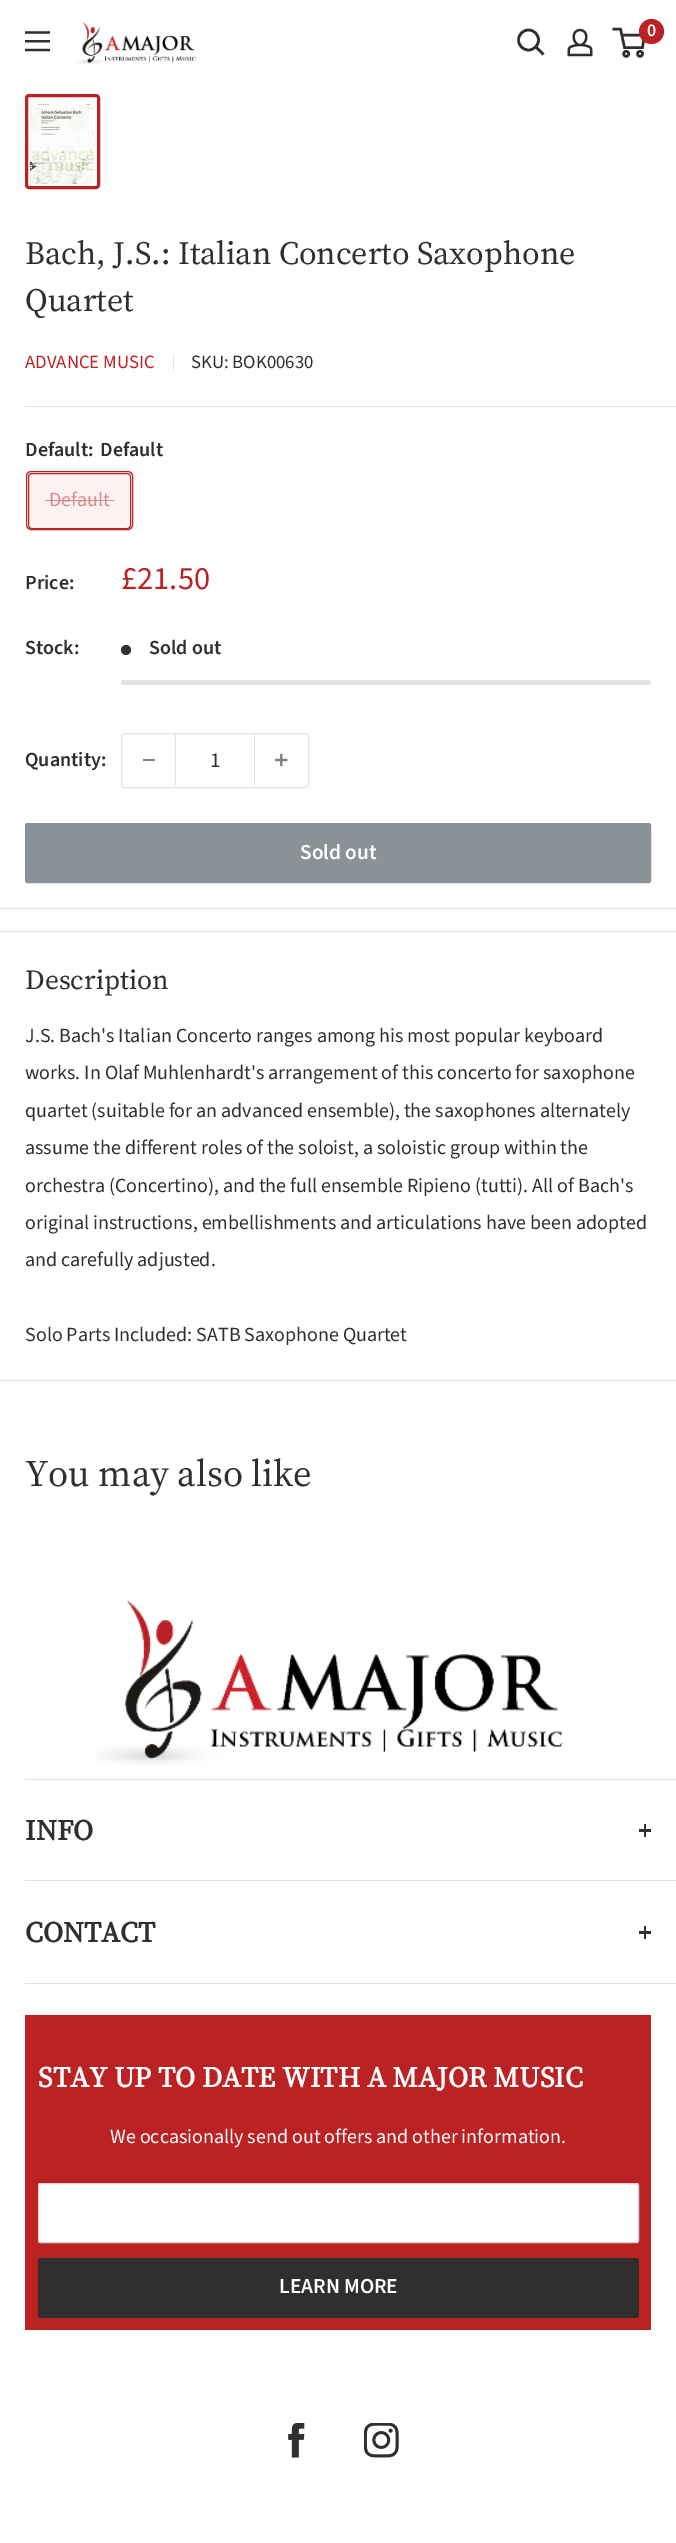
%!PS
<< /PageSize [676 2543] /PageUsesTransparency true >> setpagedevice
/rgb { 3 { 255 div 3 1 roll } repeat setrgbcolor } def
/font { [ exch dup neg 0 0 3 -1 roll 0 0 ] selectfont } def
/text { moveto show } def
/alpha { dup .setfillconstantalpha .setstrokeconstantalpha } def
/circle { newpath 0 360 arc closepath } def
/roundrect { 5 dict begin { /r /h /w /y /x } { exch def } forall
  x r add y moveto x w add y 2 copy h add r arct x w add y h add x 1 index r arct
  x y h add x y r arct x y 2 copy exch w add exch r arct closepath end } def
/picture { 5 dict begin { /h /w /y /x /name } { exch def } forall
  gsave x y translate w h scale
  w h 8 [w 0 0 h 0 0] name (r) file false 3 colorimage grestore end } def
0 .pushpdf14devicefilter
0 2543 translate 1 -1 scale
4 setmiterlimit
255 255 255 rgb
0 0 676 2543 rectfill
(img_01.rgb) 25 31 25 21 picture
(img_02.rgb) 75 22 121 42 picture
47 47 47 rgb
2.6 setlinewidth
2 setlinecap
542.5 53.5 moveto -6.5 -6.5 rlineto stroke
0 setlinecap
528.5 40 10 circle stroke
(img_03.rgb) 567 28 26 29 picture
2.5 setlinewidth
626.2 53.8 2.5 circle stroke
640 53.8 2.5 circle stroke
621.5 35 moveto 23 0 rlineto -2 12.5 rlineto -18 0 rlineto -4 -18.5 rlineto -8 0 rlineto stroke
186 34 36 rgb
651.5 31.5 12.5 circle fill
3 setlinewidth
26.5 95.5 72 92 2.5 roundrect stroke
(img_04.rgb) 30 99 65 85 picture
225 227 228 rgb
0 908 676 1 rectfill
173 354 1 16 rectfill
25 406 651 1 rectfill
186 34 36 rgb
1 setlinewidth
26.5 471.5 106 58 4.5 roundrect stroke
0.06 alpha
28 473 103 56 rectfill
1 alpha
28.5 473.5 102 55 3.5 roundrect stroke
218 138 139 rgb
45 500 69 1 rectfill
47 47 47 rgb
126 650 5 circle fill
225 227 228 rgb
121 680 530 5 2.5 roundrect fill
121.5 733.5 187 54 3.5 roundrect stroke
130 130 130 rgb
143 759 12 2 rectfill
243 244 244 rgb
176 734 78 1 rectfill
225 227 228 rgb
254 734 1 52 rectfill
175 734 1 52 rectfill
(img_05.rgb) 275 753 13 14 picture
138 146 151 rgb
25.5 823.5 625 59 2 roundrect gsave fill grestore
stroke
225 227 228 rgb
0 931 676 1 rectfill
0 1380 676 1 rectfill
25 1779 651 1 rectfill
(img_06.rgb) 96 1600 467 166 picture
25 1880 651 1 rectfill
47 47 47 rgb
644 1824 2 13 rectfill
639 1829 12 3 rectfill
225 227 228 rgb
25 1983 651 1 rectfill
47 47 47 rgb
644 1926 2 13 rectfill
639 1931 12 3 rectfill
186 34 36 rgb
25 2015 626 315 rectfill
255 255 255 rgb
38 2183 601 60 2.5 roundrect fill
248 248 248 rgb
40 2185 moveto 596 0 rlineto 2 1 rlineto 0 -1 0 -2 -1 -2 rcurveto -597 0 rlineto -1 1 rlineto 0 1 rlineto closepath fill
212 214 216 rgb
38.5 2183.5 600 59 2 roundrect stroke
47 47 47 rgb
38 2258 601 60 2.5 roundrect fill
(img_07.rgb) 288 2423 17 35 picture
(img_08.rgb) 364 2423 35 35 picture
/SourceSansPro-SemiBold 18 font
255 255 255 rgb
(0) 647 36 text
/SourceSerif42-Regular 32.5 font
47 47 47 rgb
(Bach, J.S.: Italian Concerto Saxophone) 25 264 text
(Quartet) 25 311 text
/SourceSansPro-Regular 18.75 font
186 34 36 rgb
(ADVANCE MUSIC) 25 368 text
47 47 47 rgb
(SKU: BOK00630) 191 368 text
/SourceSansPro-SemiBold 20 font
(Default:) 25 456 text
(Default) 100 456 text
/SourceSansPro-Regular 20 font
218 138 139 rgb
(Default) 49 506 text
/SourceSansPro-SemiBold 20 font
47 47 47 rgb
(Price:) 25 589 text
/SourceSansPro-Regular 32.5 font
186 34 36 rgb
(£21.50) 121 589 text
/SourceSansPro-SemiBold 20 font
47 47 47 rgb
(Stock:) 25 654 text
(Sold out) 149 654 text
(Quantity:) 25 766 text
/SourceSansPro-Regular 21.25 font
(1) 210 767 text
/SourceSansPro-SemiBold 21.25 font
255 255 255 rgb
(Sold out) 300 859 text
/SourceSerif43-Regular 27.5 font
47 47 47 rgb
(Description) 25 989 text
/SourceSansPro-Regular 20 font
(J.S. Bach's Italian Concerto ranges among his most popular keyboard) 25 1042 text
(works. In Olaf Muhlenhardt's arrangement of this concerto for saxophone) 25 1079 text
(quartet \(suitable for an advanced ensemble\), the saxophones alternately) 25 1117 text
(assume the different roles of the soloist, a soloistic group within the) 25 1154 text
(orchestra \(Concertino\), and the full ensemble Ripieno \(tutti\). All of Bach's) 25 1192 text
(original instructions, embellishments and articulations have been adopted) 25 1229 text
(and carefully adjusted.) 25 1266 text
(Solo Parts Included: SATB Saxophone Quartet) 25 1341 text
/SourceSerif4-Regular 37.5 font
(You may also like) 25 1486 text
/SourceSerif4-Bold 28.75 font
(INFO) 25 1840 text
(CONTACT) 25 1942 text
255 255 255 rgb
(STAY UP TO DATE WITH A MAJOR MUSIC) 38 2087 text
/SourceSansPro-Regular 20 font
(We occasionally send out offers and other information.) 110 2143 text
/SourceSansPro-SemiBold 21.25 font
(LEARN MORE) 279 2293 text
.poppdf14devicefilter showpage
